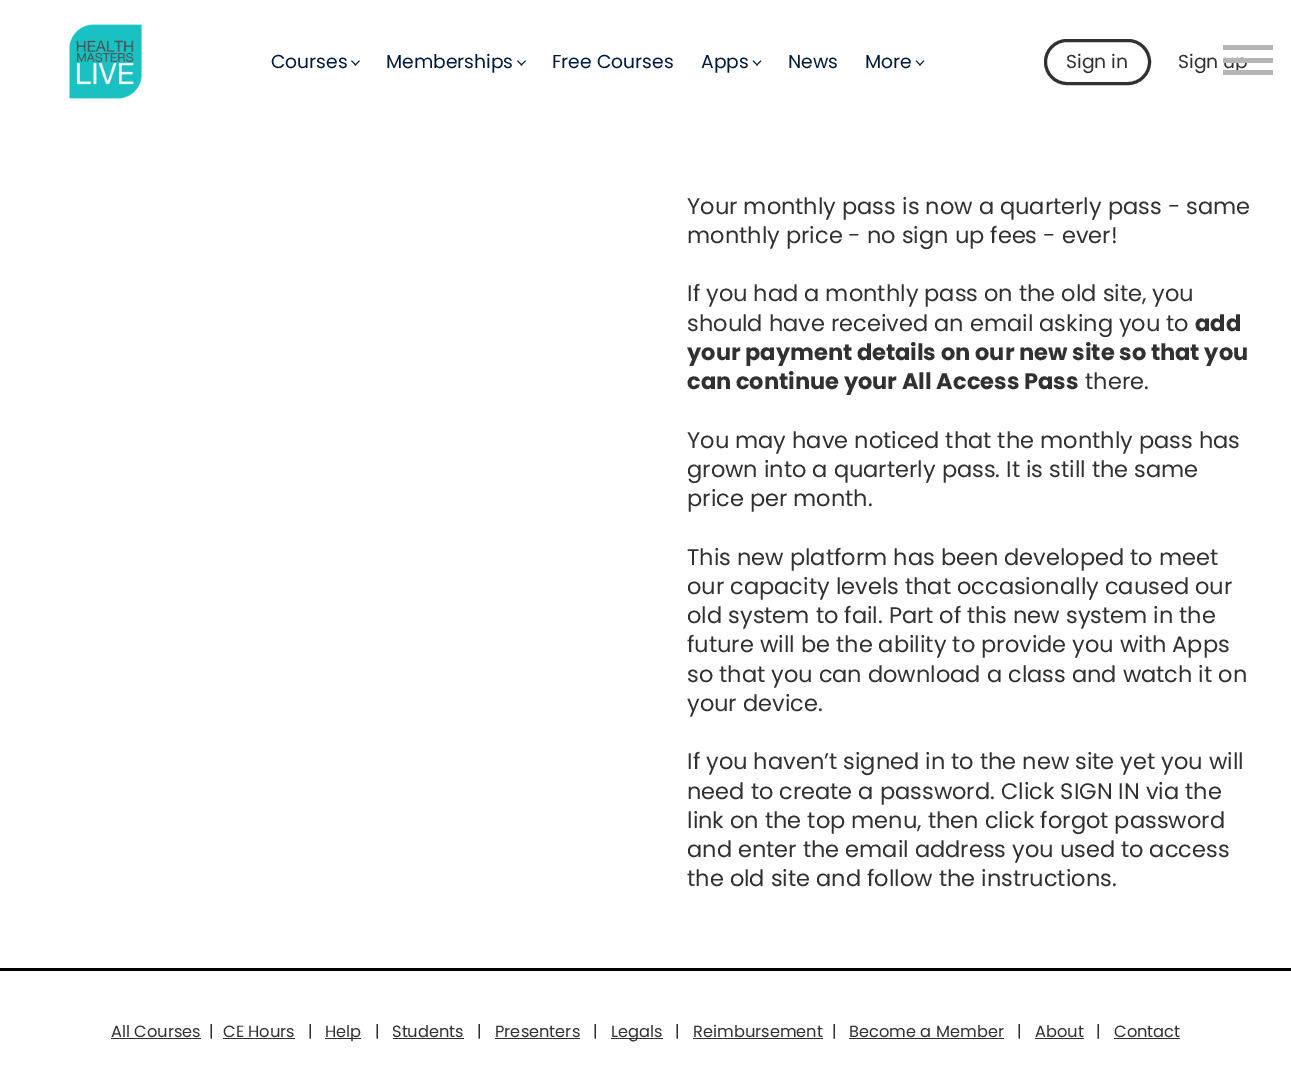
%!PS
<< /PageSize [1291 1067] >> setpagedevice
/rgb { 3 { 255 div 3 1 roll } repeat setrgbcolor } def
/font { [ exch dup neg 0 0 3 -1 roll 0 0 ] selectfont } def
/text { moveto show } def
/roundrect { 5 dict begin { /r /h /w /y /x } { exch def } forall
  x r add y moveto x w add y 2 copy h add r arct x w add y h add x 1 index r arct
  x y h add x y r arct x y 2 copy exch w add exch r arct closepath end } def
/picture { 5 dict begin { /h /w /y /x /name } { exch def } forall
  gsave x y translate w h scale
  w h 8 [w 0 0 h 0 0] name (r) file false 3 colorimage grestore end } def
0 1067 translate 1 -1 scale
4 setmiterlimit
255 255 255 rgb
0 0 1291 1067 rectfill
180 180 180 rgb
1223 45 50 5 rectfill
(img_01.rgb) 69 24 74 75 picture
0 26 60 rgb
360 61 moveto -4.5 4.5 rlineto -1 -0.5 rlineto 4.5 -4.5 rlineto closepath fill
356.5 65 moveto -1 0.5 rlineto -4.5 -4.5 rlineto 1 -0.5 rlineto closepath fill
526 61 moveto -4.5 4.5 rlineto -1 -0.5 rlineto 4.5 -4.5 rlineto closepath fill
522.5 65 moveto -1 0.5 rlineto -4.5 -4.5 rlineto 1 -0.5 rlineto closepath fill
761.5 61 moveto -4.5 4.5 rlineto -1 -0.5 rlineto 4.5 -4.5 rlineto closepath fill
758 65 moveto -1 0.5 rlineto -4.5 -4.5 rlineto 1 -0.5 rlineto closepath fill
924.5 61 moveto -4.5 4.5 rlineto -1 -0.5 rlineto 4.5 -4.5 rlineto closepath fill
921 65 moveto -1 0.5 rlineto -4.5 -4.5 rlineto 1 -0.5 rlineto closepath fill
49 49 49 rgb
3 setlinewidth
1045.5 40.5 104 43 21.5 roundrect stroke
0 0 0 rgb
0 968 1291 3 rectfill
49 49 49 rgb
111 1038 90 1 rectfill
223 1038 72 1 rectfill
325 1038 36 1 rectfill
393 1038 71 1 rectfill
495 1038 85 1 rectfill
611 1038 52 1 rectfill
693 1038 130 1 rectfill
849 1038 155 1 rectfill
1035 1038 49 1 rectfill
1114 1038 66 1 rectfill
/Poppins-Regular 18.75 font
0 26 60 rgb
(Courses) 271 68 text
(Memberships) 386 68 text
(Free Courses) 552 68 text
(Apps) 701 68 text
(News) 788 68 text
(More) 865 68 text
49 49 49 rgb
(Sign in) 1066 68 text
(Sign up) 1178 68 text
180 180 180 rgb
1223 58 50 5 rectfill
1223 70 50 5 rectfill
/Poppins-Regular 22.5 font
49 49 49 rgb
(Your monthly pass is now a quarterly pass - same) 687 214 text
(monthly price - no sign up fees - ever!) 687 243 text
(If you had a monthly pass on the old site, you) 687 301 text
(should have received an email asking you to) 687 331 text
/Poppins-Bold 22.5 font
(add) 1195 331 text
(your payment details on our new site so that you) 687 360 text
(can continue your All Access Pass) 687 389 text
/Poppins-Regular 22.5 font
(there.) 1085 389 text
(You may have noticed that the monthly pass has) 687 448 text
(grown into a quarterly pass. It is still the same) 687 477 text
(price per month.) 687 506 text
(This new platform has been developed to meet) 687 565 text
(our capacity levels that occasionally caused our) 687 594 text
(old system to fail. Part of this new system in the) 687 623 text
(future will be the ability to provide you with Apps) 687 652 text
(so that you can download a class and watch it on) 687 682 text
(your device.) 687 711 text
(If you haven’t signed in to the new site yet you will) 687 769 text
(need to create a password. Click SIGN IN via the) 687 799 text
(link on the top menu, then click forgot password) 687 828 text
(and enter the email address you used to access) 687 857 text
(the old site and follow the instructions.) 687 886 text
/Poppins-Regular 16.25 font
(All Courses) 111 1037 text
(|) 209 1037 text
(CE Hours) 223 1037 text
(|) 308 1037 text
(Help) 325 1037 text
(|) 375 1037 text
(Students) 392 1037 text
(|) 477 1037 text
(Presenters) 495 1037 text
(|) 593 1037 text
(Legals) 611 1037 text
(|) 675 1037 text
(Reimbursement) 693 1037 text
(|) 832 1037 text
(Become a Member) 849 1037 text
(|) 1017 1037 text
(About) 1035 1037 text
(|) 1096 1037 text
(Contact) 1114 1037 text
showpage
